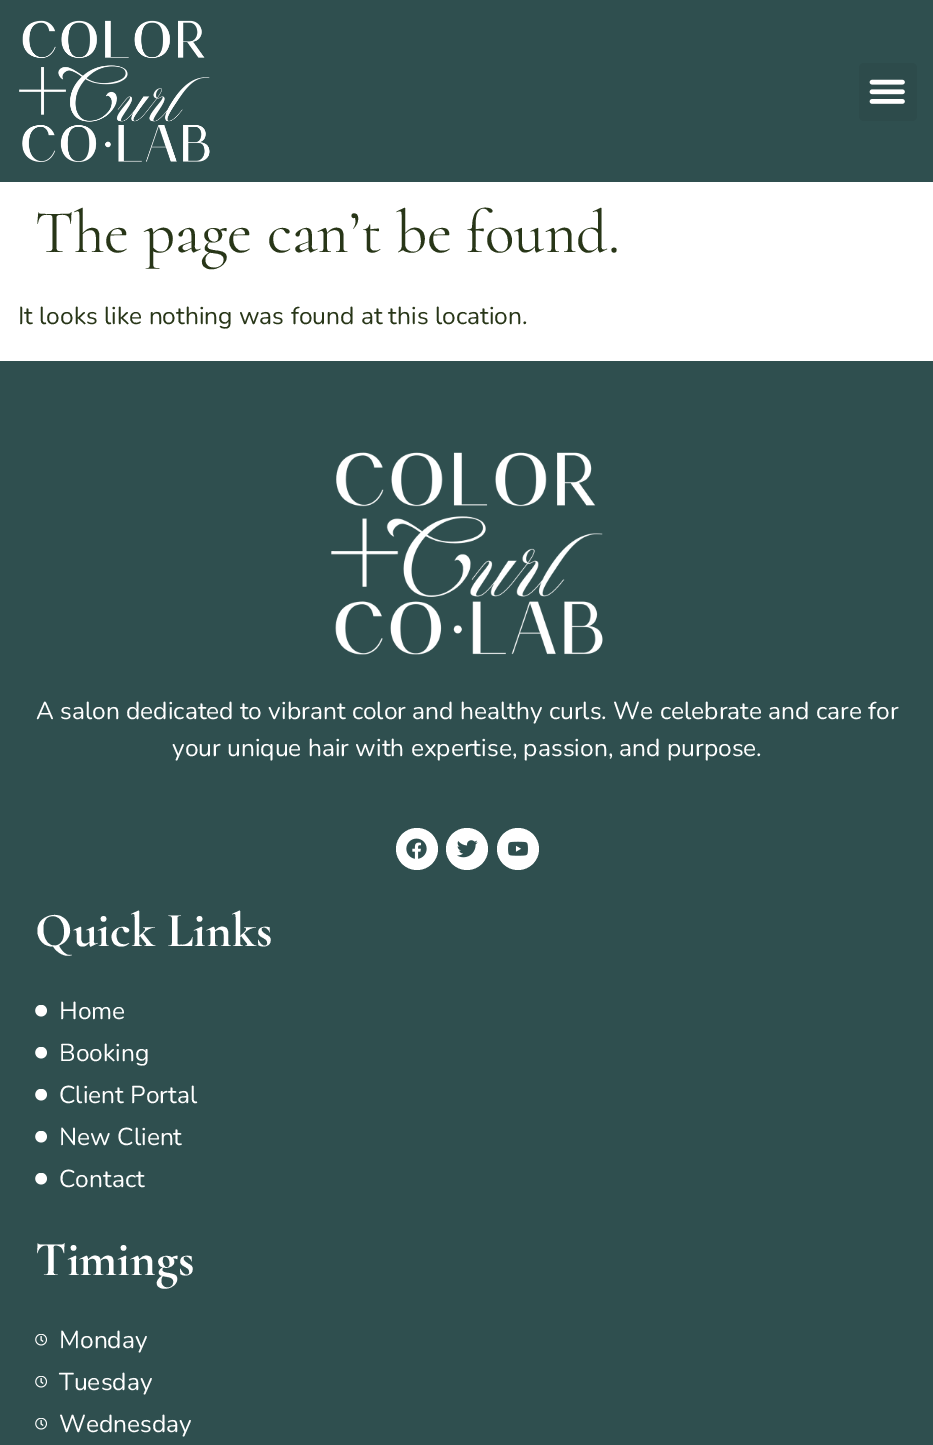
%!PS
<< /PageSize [933 1445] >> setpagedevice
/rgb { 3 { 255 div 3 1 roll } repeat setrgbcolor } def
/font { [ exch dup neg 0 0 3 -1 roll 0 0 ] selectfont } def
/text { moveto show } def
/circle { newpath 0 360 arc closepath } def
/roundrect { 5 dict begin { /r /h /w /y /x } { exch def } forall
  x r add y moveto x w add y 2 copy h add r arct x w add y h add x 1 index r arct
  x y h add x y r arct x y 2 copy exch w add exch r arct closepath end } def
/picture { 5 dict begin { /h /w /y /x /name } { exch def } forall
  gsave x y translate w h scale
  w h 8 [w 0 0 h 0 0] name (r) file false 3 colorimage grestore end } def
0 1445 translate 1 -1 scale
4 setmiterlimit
255 255 255 rgb
0 0 933 1445 rectfill
47 79 79 rgb
0 0 933 182 rectfill
(img_01.rgb) 19 20 191 142 picture
45 75 75 rgb
859 63 58 58 5 roundrect fill
(img_02.rgb) 869 79 36 25 picture
47 79 79 rgb
0 361 933 1084 rectfill
(img_03.rgb) 331 452 272 203 picture
255 255 255 rgb
417 849 21 circle fill
(img_04.rgb) 406 838 21 21 picture
467 849 21 circle fill
(img_05.rgb) 457 840 21 18 picture
518 849 21 circle fill
(img_06.rgb) 508 841 20 15 picture
(img_07.rgb) 35 1005 12 12 picture
(img_07.rgb) 35 1047 12 12 picture
(img_07.rgb) 35 1089 12 12 picture
(img_07.rgb) 35 1131 12 12 picture
(img_07.rgb) 35 1173 12 12 picture
(img_08.rgb) 35 1334 12 12 picture
(img_08.rgb) 35 1376 12 12 picture
(img_08.rgb) 35 1418 12 12 picture
/Cormorant-Regular 61.25 font
40 54 24 rgb
(The page can’t be found.) 35 252 text
/Nunito-Regular 24.5 font
(It looks like nothing was found at this location.) 18 324 text
255 255 255 rgb
(A salon dedicated to vibrant color and healthy curls. We celebrate and care for) 36 719 text
(your unique hair with expertise, passion, and purpose.) 172 756 text
/Cormorant-Bold 49 font
(Quick Links) 35 946 text
/Nunito-Regular 24.5 font
(Home) 59 1019 text
(Booking) 59 1061 text
(Client Portal) 59 1103 text
(New Client) 59 1145 text
(Contact) 59 1187 text
/Cormorant-Bold 49 font
(Timings) 35 1275 text
/Nunito-Regular 24.5 font
(Monday) 59 1348 text
(Tuesday) 59 1390 text
(Wednesday) 59 1432 text
showpage
